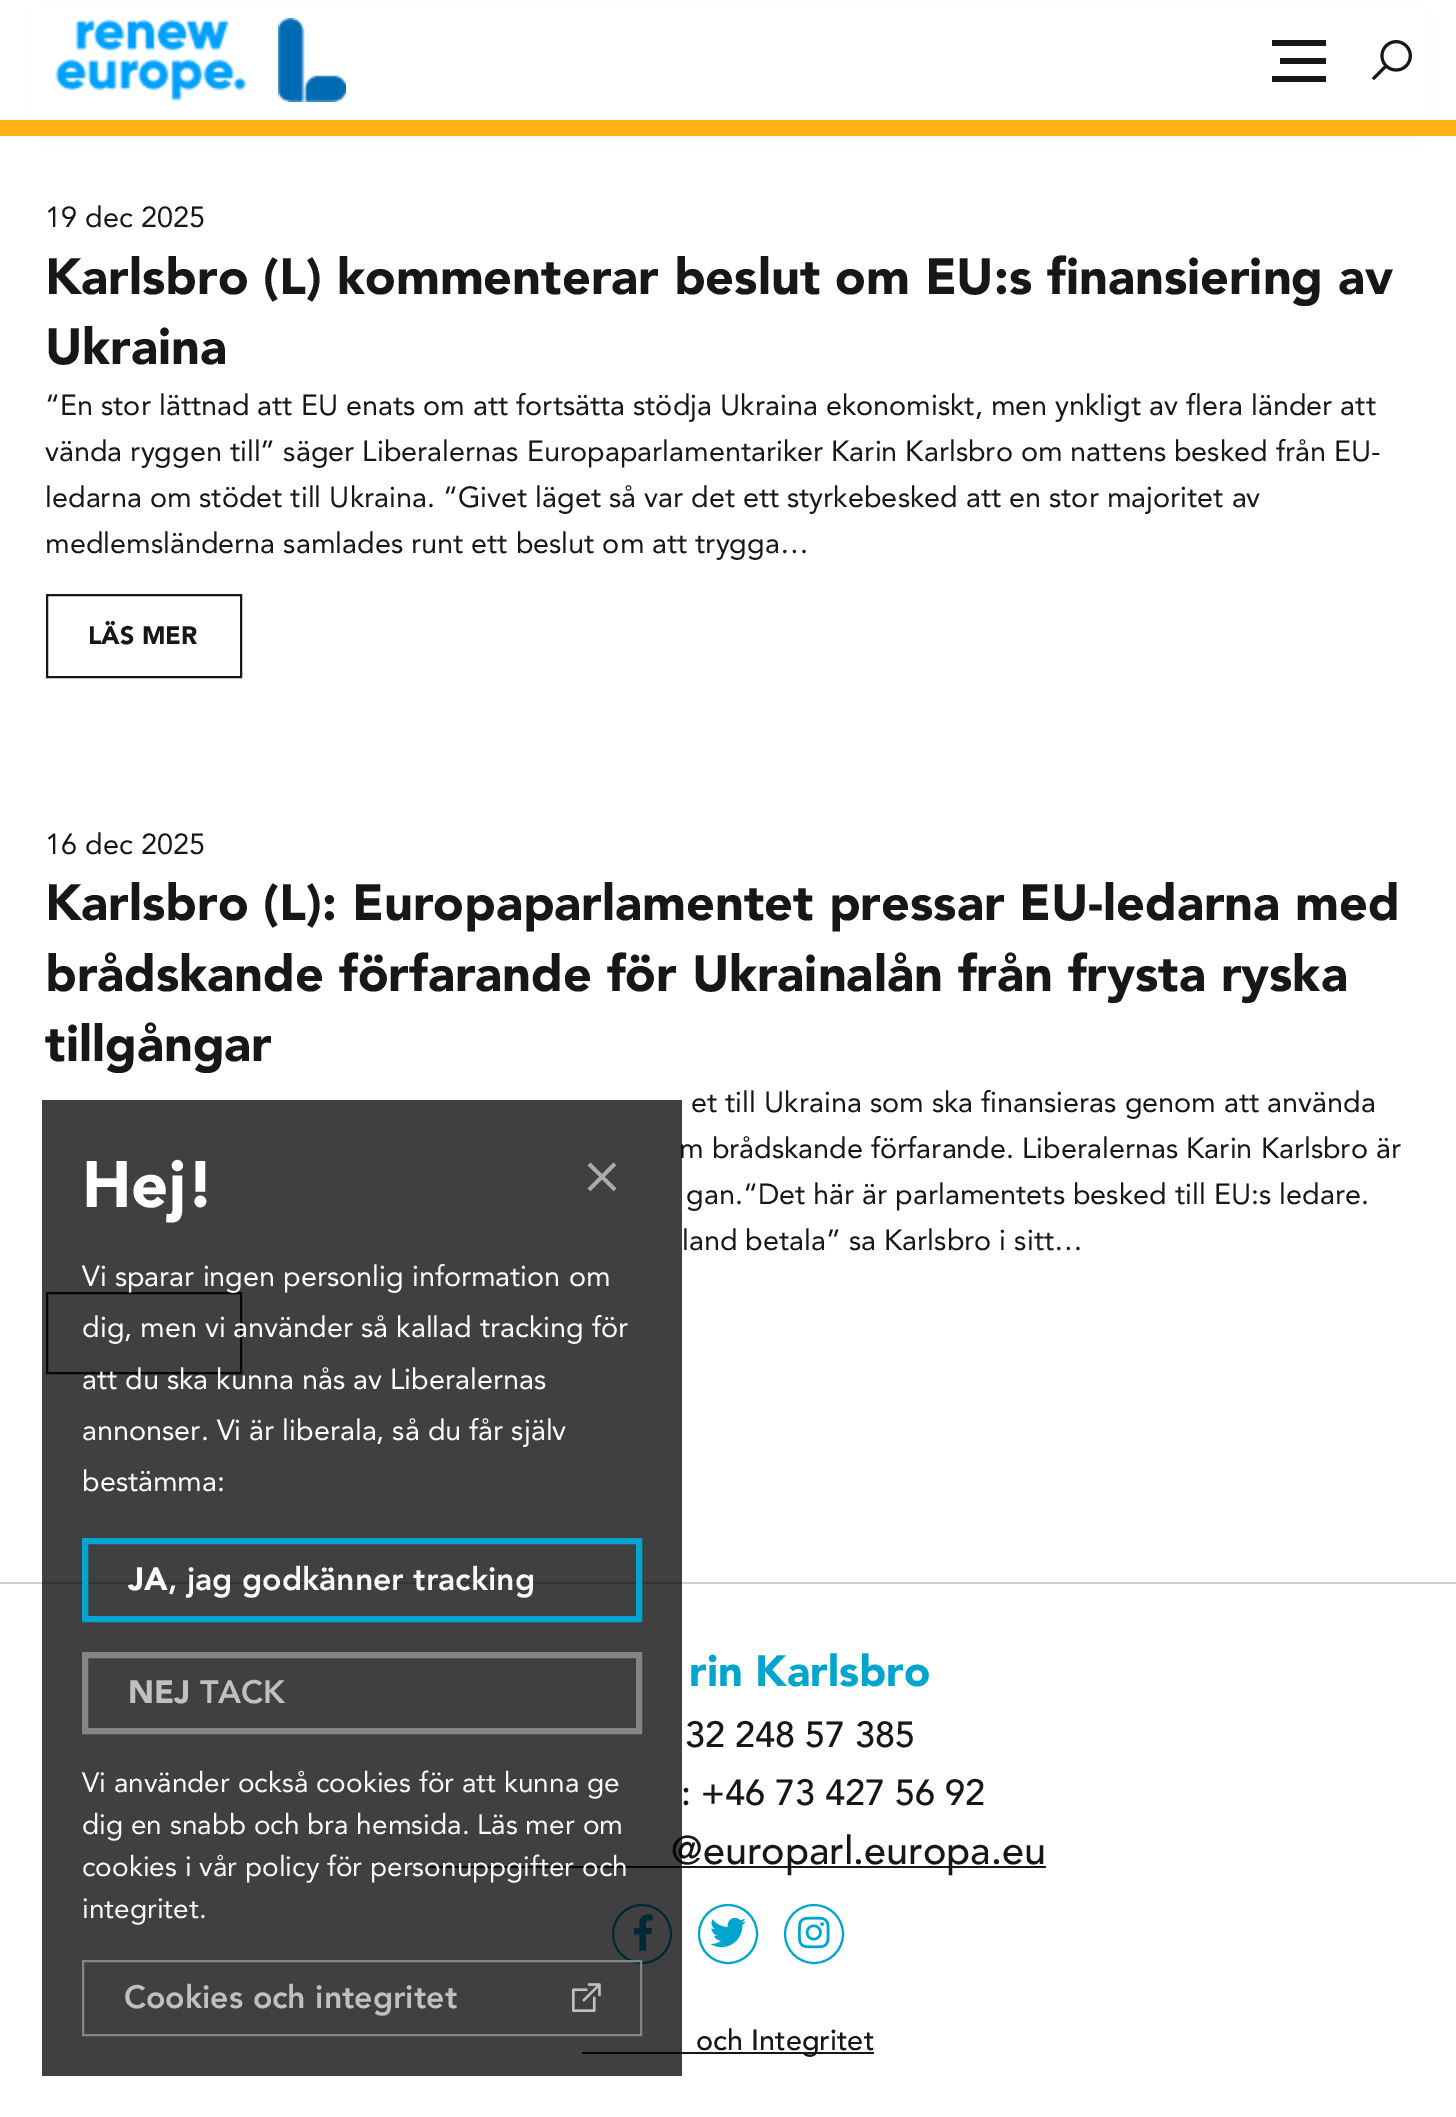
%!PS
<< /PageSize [1456 2117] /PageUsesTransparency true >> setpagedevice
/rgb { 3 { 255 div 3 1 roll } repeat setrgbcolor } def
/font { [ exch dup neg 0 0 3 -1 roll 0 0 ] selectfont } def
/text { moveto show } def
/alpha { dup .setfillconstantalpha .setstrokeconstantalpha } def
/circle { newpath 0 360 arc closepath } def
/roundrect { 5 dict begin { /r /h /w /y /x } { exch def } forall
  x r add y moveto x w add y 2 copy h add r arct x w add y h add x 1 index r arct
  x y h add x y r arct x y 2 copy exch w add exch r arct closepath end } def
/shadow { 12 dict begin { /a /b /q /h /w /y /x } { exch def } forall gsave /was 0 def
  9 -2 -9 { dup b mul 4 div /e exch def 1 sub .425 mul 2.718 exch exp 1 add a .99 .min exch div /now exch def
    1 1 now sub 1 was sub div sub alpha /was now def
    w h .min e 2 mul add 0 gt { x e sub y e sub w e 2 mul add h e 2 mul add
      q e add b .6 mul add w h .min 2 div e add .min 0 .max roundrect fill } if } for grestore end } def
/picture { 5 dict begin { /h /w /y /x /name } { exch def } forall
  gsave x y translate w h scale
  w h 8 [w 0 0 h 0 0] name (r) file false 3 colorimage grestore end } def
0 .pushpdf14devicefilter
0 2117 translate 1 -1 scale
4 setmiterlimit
255 255 255 rgb
0 0 1456 2117 rectfill
0 0 0 rgb
46 18 1366 110 0 10 0.15 shadow
255 255 255 rgb
31 3 1396 117 rectfill
(img_01.rgb) 55 19 192 82 picture
(img_02.rgb) 278 18 68 84 picture
24 23 23 rgb
1272 40 54 6 rectfill
1280 58 46 6 rectfill
1272 76 54 6 rectfill
(img_03.rgb) 1372 40 40 40 picture
252 177 22 rgb
0 120 1456 16 rectfill
24 23 23 rgb
2 setlinewidth
47 595 194 82 rectstroke
47 1293 194 80 rectstroke
212 203 197 rgb
0 1582 1456 2 rectfill
24 23 23 rgb
428 1866 618 2 rectfill
0 165 207 rgb
642 1934 29 circle stroke
(img_05.rgb) 634 1914 19 37 picture
728 1934 29 circle stroke
(img_06.rgb) 710 1917 36 31 picture
814 1934 29 circle stroke
(img_07.rgb) 798 1916 32 33 picture
24 23 23 rgb
582 2052 292 2 rectfill
/Avenir-Regular 28.8 font
(19 dec 2025) 45 227 text
/Avenir-Black 50.4 font
(Karlsbro \(L\) kommenterar beslut om EU:s finansiering av) 45 294 text
(Ukraina) 45 364 text
/Avenir-Regular 28.8 font
(“En stor lättnad att EU enats om att fortsätta stödja Ukraina ekonomiskt, men ynkligt av flera länder att) 45 415 text
(vända ryggen till” säger Liberalernas Europaparlamentariker Karin Karlsbro om nattens besked från EU-) 45 461 text
(ledarna om stödet till Ukraina. “Givet läget så var det ett styrkebesked att en stor majoritet av) 45 507 text
(medlemsländerna samlades runt ett beslut om att trygga…) 45 553 text
/Avenir-Black 25 font
(LÄS MER) 88 644 text
/Avenir-Regular 28.8 font
(16 dec 2025) 45 854 text
/Avenir-Black 50.4 font
(Karlsbro \(L\): Europaparlamentet pressar EU-ledarna med) 45 920 text
(brådskande förfarande för Ukrainalån från frysta ryska) 45 991 text
(tillgångar) 45 1061 text
/Avenir-Regular 28.8 font
(et till Ukraina som ska finansieras genom att använda) 691 1112 text
(m brådskande förfarande. Liberalernas Karin Karlsbro är) 679 1158 text
(gan.“Det här är parlamentets besked till EU:s ledare.) 686 1204 text
(land betala” sa Karlsbro i sitt…) 682 1250 text
/Avenir-Black 43.25 font
0 165 207 rgb
(rin Karlsbro) 689 1686 text
/Avenir-Medium 36 font
24 23 23 rgb
(32 248 57 385) 685 1747 text
(: +46 73 427 56 92) 681 1805 text
/Avenir-Medium 39.5 font
(@europarl.europa.eu) 671 1864 text
0.75 alpha
0 0 0 rgb
42 1100 640 976 rectfill
/Avenir-Regular 60 font
1 alpha
171 171 171 rgb
(×) 582 1195 text
133 133 133 rgb
83 1961 558 74 rectstroke
(img_04.rgb) 572 1983 29 29 picture
/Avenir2-Black 32 font
192 192 192 rgb
(Cookies och integritet) 124 2008 text
/Avenir-Regular 28 font
248 248 248 rgb
(integritet.) 82 1918 text
(cookies i vår policy för personuppgifter och) 82 1876 text
(dig en snabb och bra hemsida. Läs mer om) 82 1834 text
(Vi använder också cookies för att kunna ge) 82 1792 text
133 133 133 rgb
6 setlinewidth
85 1655 554 76 rectstroke
/Avenir2-Black 32 font
192 192 192 rgb
(TACK) 200 1703 text
/Avenir-Black 32 font
(NEJ) 128 1703 text
0 165 207 rgb
85 1541 554 78 rectstroke
/Avenir2-Black 32 font
248 248 248 rgb
(, jag godkänner tracking) 168 1590 text
/Avenir-Black 32 font
(JA) 128 1590 text
/Avenir-Regular 28.8 font
255 255 255 rgb
(bestämma:) 82 1491 text
(annonser. Vi är liberala, så du får själv) 82 1440 text
(att du ska kunna nås av Liberalernas) 82 1389 text
(dig, men vi använder så kallad tracking för) 82 1337 text
(Vi sparar ingen personlig information om) 82 1286 text
/Avenir-Black 65 font
(Hej!) 82 1207 text
/Avenir-Medium 28.8 font
24 23 23 rgb
(och Integritet) 696 2050 text
.poppdf14devicefilter showpage
